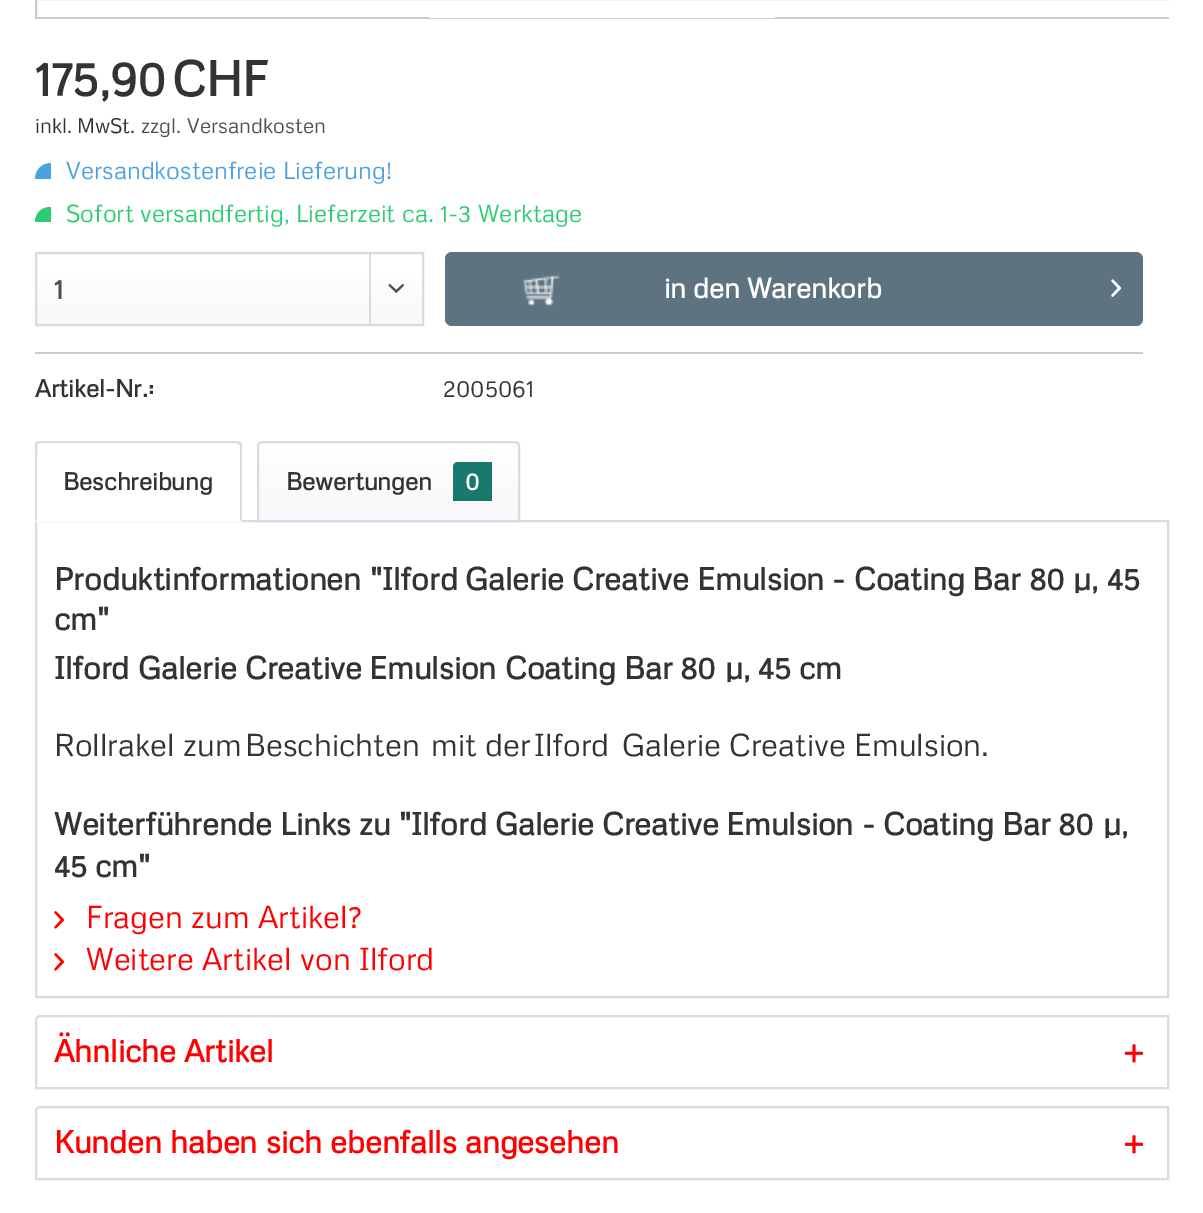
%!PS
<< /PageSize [1203 1213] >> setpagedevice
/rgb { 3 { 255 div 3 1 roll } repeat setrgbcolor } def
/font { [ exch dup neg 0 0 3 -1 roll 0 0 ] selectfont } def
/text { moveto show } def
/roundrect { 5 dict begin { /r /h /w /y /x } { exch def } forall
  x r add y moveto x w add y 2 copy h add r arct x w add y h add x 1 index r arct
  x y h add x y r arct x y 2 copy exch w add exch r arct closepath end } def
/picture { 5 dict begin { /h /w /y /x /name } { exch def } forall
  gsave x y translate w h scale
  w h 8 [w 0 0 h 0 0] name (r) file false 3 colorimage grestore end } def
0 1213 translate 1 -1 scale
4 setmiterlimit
255 255 255 rgb
0 0 1203 1213 rectfill
gsave
35 0 1134 19 rectclip
204 204 204 rgb
2 setlinewidth
36 -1 1134 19 rectstroke
grestore
(img_01.rgb) 429 17 347 1 picture
204 204 204 rgb
35 352 1108 2 rectfill
74 163 223 rgb
51 163 moveto 0 16 rlineto -16 0 rlineto 0 -9 7 -16 16 -16 rcurveto closepath fill
46 204 113 rgb
50 207 moveto 1 0 rlineto 0 15 rlineto -16 0 rlineto 0 -8.5 6.5 -15 15 -15 rcurveto closepath fill
gsave 37 279 moveto 385 0 rlineto 0 45 rlineto -385 0 rlineto closepath clip newpath
<< /ShadingType 2 /ColorSpace /DeviceRGB /Coords [229 254 229 324] /Extend [true true] /Function << /FunctionType 2 /Domain [0 1] /C0 [1 1 1] /C1 [0.973 0.973 0.98] /N 1 >> >> shfill grestore
218 218 229 rgb
2 setlinewidth
36 253 387 72 rectstroke
369 254 2 70 rectfill
(img_02.rgb) 388 284 16 9 picture
93 115 127 rgb
445 252 698 74 7 roundrect fill
(img_03.rgb) 523 274 37 33 picture
(img_04.rgb) 1111 279 11 18 picture
218 218 229 rgb
36 521 1132 476 rectstroke
255 255 255 rgb
40 441 moveto 197 0 rlineto 3 0 5 2 5 5 rcurveto 0 76 rlineto -207 0 rlineto 0 -76 rlineto 0 -3 2 -5 5 -5 rcurveto closepath fill
218 218 229 rgb
40 441 moveto -2 0 -3 1 -4 1 rcurveto 2 2 rlineto 2 -1 rlineto 196 0 rlineto 3 1 rlineto 1 -2 rlineto -1 0 -2 -1 -4 -1 rcurveto closepath fill
240 442 moveto 2 2 rlineto 0 78 rlineto -2 -2 rlineto 0 -74 rlineto -1 -2 rlineto closepath fill
255 255 255 rgb
242 522 moveto -2 -2 rlineto -203 0 rlineto -2 2 rlineto closepath fill
218 218 229 rgb
35 522 moveto 2 -2 rlineto 0 -9 -1 -75 1 -76 rcurveto -2 -2 rlineto 0 1 -1 2 -1 4 rcurveto closepath fill
gsave 263 443 moveto 251 0 rlineto 2 0 4 2 4 4 rcurveto 0 73 rlineto -259 0 rlineto 0 -73 rlineto 0 -2 2 -4 4 -4 rcurveto closepath clip newpath
<< /ShadingType 2 /ColorSpace /DeviceRGB /Coords [389 443 389 520] /Extend [true true] /Function << /FunctionType 2 /Domain [0 1] /C0 [1 1 1] /C1 [0.973 0.973 0.98] /N 1 >> >> shfill grestore
262 442 moveto 253 0 rlineto 2 0 4 2 4 4 rcurveto 0 75 rlineto -261 0 rlineto 0 -75 rlineto 0 -2 2 -4 4 -4 rcurveto closepath stroke
25 121 110 rgb
458 462 moveto 34 0 rlineto 0 39 rlineto -39 0 rlineto 0 -34 rlineto 0 -3 2 -5 5 -5 rcurveto closepath fill
(img_05.rgb) 54 911 11 18 picture
(img_05.rgb) 54 953 11 18 picture
218 218 229 rgb
40 1016 moveto 1128 0 rlineto 0 72 rlineto -1132 0 rlineto 0 -68 rlineto 0 -2 2 -4 4 -4 rcurveto closepath stroke
(img_06.rgb) 1124 1044 20 19 picture
40 1107 moveto 1128 0 rlineto 0 72 rlineto -1132 0 rlineto 0 -68 rlineto 0 -2 2 -4 4 -4 rcurveto closepath stroke
(img_06.rgb) 1124 1135 20 19 picture
/Metrophobic-Bold 49 font
51 51 51 rgb
(175,90 CHF) 35 96 text
/Metrophobic-Regular 21 font
(inkl.) 35 133 text
(MwSt.) 77 133 text
71 82 88 rgb
(zzgl.) 141 133 text
(Versandkosten) 187 133 text
/Metrophobic-Regular 24.5 font
74 163 223 rgb
(Versandkostenfreie) 66 179 text
(Lieferung!) 283 179 text
46 204 113 rgb
(Sofort) 66 222 text
(versandfertig,) 140 222 text
(Lieferzeit) 296 222 text
(ca.) 402 222 text
(1-3) 440 222 text
(Werktage) 478 222 text
/Metrophobic-Bold 28 font
71 82 88 rgb
(1) 54 299 text
255 255 255 rgb
(in) 664 298 text
(den) 693 298 text
(Warenkorb) 747 298 text
/Metrophobic-Bold 24.5 font
51 51 51 rgb
(Artikel-Nr.:) 35 397 text
/Metrophobic-Regular 24.5 font
(2005061) 443 397 text
/Metrophobic-Bold 24.5 font
(Beschreibung) 63 490 text
(Bewertungen) 286 490 text
255 255 255 rgb
(0) 465 490 text
/Metrophobic-Bold 31.5 font
51 51 51 rgb
(Produktinformationen) 54 590 text
("Ilford) 370 590 text
(Galerie) 465 590 text
(Creative) 572 590 text
(Emulsion) 697 590 text
(-) 832 590 text
(Coating) 854 590 text
(Bar) 972 590 text
(80) 1029 590 text
(µ,) 1073 590 text
(45) 1107 590 text
(cm") 54 630 text
(Ilford) 54 679 text
(Galerie) 138 679 text
(Creative) 245 679 text
(Emulsion) 369 679 text
(Coating) 505 679 text
(Bar) 624 679 text
(80) 680 679 text
(µ,) 725 679 text
(45) 758 679 text
(cm) 799 679 text
/Metrophobic-Regular 31.5 font
(Rollrakel) 54 756 text
(zum Beschichten) 183 756 text
(mit) 431 756 text
(der Ilford) 485 756 text
(Galerie) 622 756 text
(Creative) 729 756 text
(Emulsion.) 854 756 text
/Metrophobic-Bold 31.5 font
(Weiterführende) 54 835 text
(Links) 280 835 text
(zu) 359 835 text
("Ilford) 399 835 text
(Galerie) 495 835 text
(Creative) 602 835 text
(Emulsion) 726 835 text
(-) 862 835 text
(Coating) 883 835 text
(Bar) 1002 835 text
(80) 1058 835 text
(µ,) 1103 835 text
(45) 54 877 text
(cm") 95 877 text
/Metrophobic-Regular 31.5 font
254 0 0 rgb
(Fragen) 86 928 text
(zum) 191 928 text
(Artikel?) 258 928 text
(Weitere) 86 970 text
(Artikel) 202 970 text
(von) 300 970 text
(Ilford) 359 970 text
/Metrophobic-Bold 31.5 font
(Ähnliche) 54 1062 text
(Artikel) 184 1062 text
(Kunden) 54 1153 text
(haben) 170 1153 text
(sich) 266 1153 text
(ebenfalls) 330 1153 text
(angesehen) 465 1153 text
showpage
